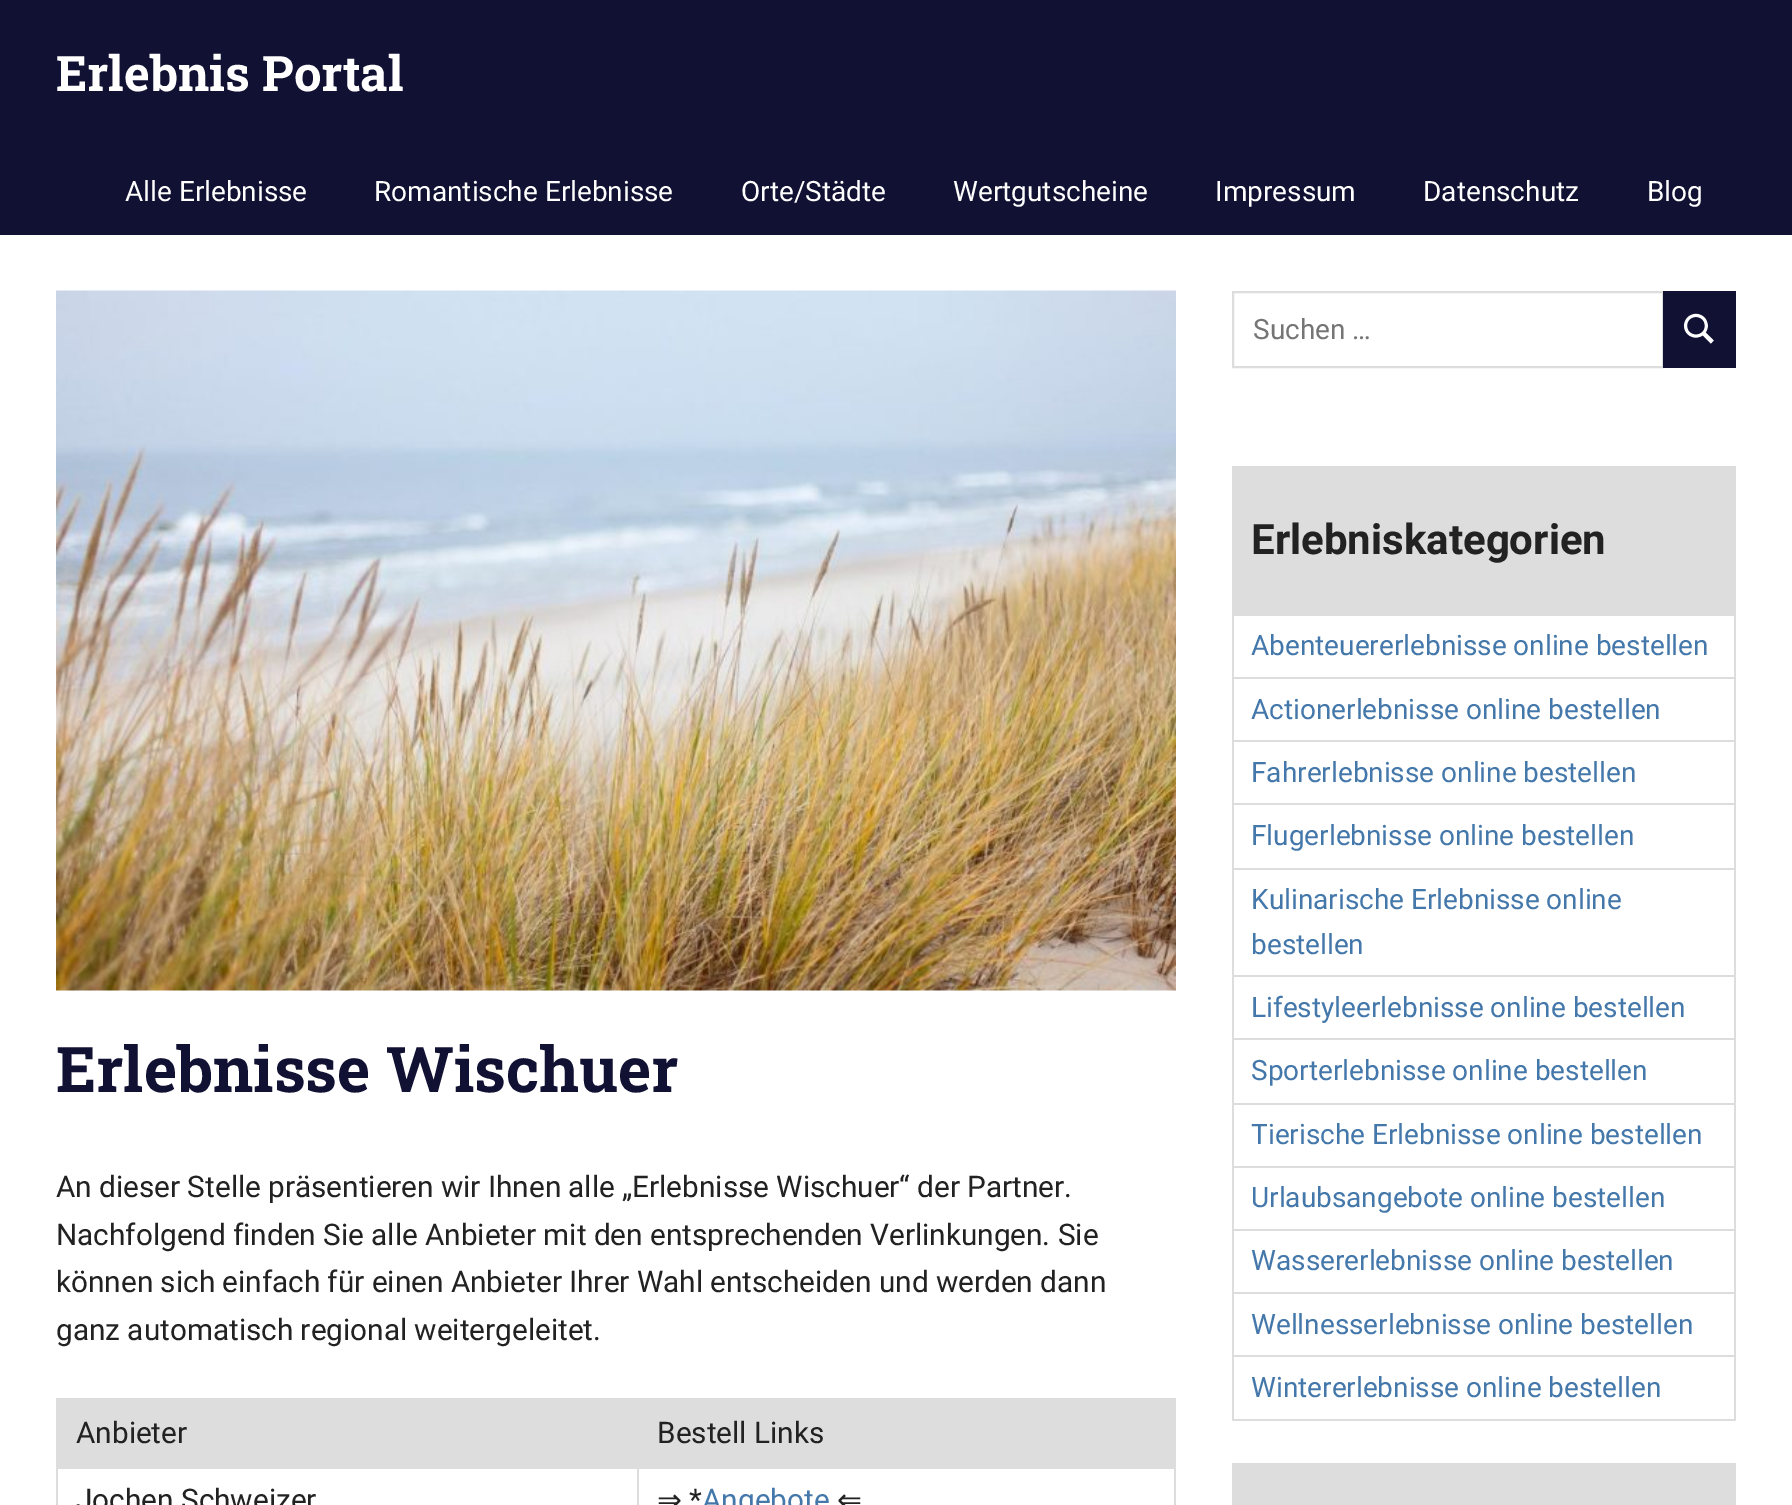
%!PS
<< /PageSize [1792 1505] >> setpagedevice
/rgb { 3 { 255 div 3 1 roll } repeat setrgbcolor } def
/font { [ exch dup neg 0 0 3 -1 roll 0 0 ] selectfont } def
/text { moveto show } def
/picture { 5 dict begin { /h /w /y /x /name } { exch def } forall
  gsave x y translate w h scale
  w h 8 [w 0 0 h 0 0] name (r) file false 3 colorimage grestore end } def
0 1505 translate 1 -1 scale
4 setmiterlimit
255 255 255 rgb
0 0 1792 1505 rectfill
17 17 51 rgb
0 0 1792 235 rectfill
(img_01.rgb) 56 290 1120 701 picture
221 221 221 rgb
58 1400 1118 67 rectfill
56 1398 1120 2 rectfill
637 1467 539 2 rectfill
637 1467 2 38 rectfill
56 1467 583 2 rectfill
56 1467 2 38 rectfill
56 1398 2 70 rectfill
1174 1467 2 38 rectfill
2 setlinewidth
1233 292 430 75 rectstroke
17 17 51 rgb
1663 291 73 77 rectfill
(img_02.rgb) 1683 313 31 31 picture
221 221 221 rgb
1234 468 502 146 rectfill
1232 466 504 2 rectfill
1232 614 504 2 rectfill
1232 677 504 2 rectfill
1232 740 504 2 rectfill
1232 803 504 2 rectfill
1232 868 504 2 rectfill
1232 975 504 2 rectfill
1232 1038 504 2 rectfill
1232 1103 504 2 rectfill
1232 1166 504 2 rectfill
1232 1229 504 2 rectfill
1232 1292 504 2 rectfill
1232 1355 504 2 rectfill
1734 1355 2 66 rectfill
1232 1419 504 2 rectfill
1232 1355 2 66 rectfill
1232 1292 2 64 rectfill
1232 1229 2 64 rectfill
1232 1166 2 64 rectfill
1232 1103 2 64 rectfill
1232 1038 2 66 rectfill
1232 975 2 65 rectfill
1232 868 2 109 rectfill
1232 803 2 67 rectfill
1232 740 2 65 rectfill
1232 677 2 65 rectfill
1232 614 2 65 rectfill
1232 466 2 150 rectfill
1734 1292 2 64 rectfill
1734 1229 2 64 rectfill
1734 1166 2 64 rectfill
1734 1103 2 64 rectfill
1734 1038 2 66 rectfill
1734 975 2 65 rectfill
1734 868 2 109 rectfill
1734 803 2 67 rectfill
1734 740 2 65 rectfill
1734 677 2 65 rectfill
1734 614 2 65 rectfill
1234 1465 502 40 rectfill
1232 1463 504 2 rectfill
1232 1463 2 42 rectfill
/RobotoSlab-Bold 49 font
255 255 255 rgb
(Erlebnis Portal) 56 91 text
/Roboto-Regular 28 font
(Alle Erlebnisse) 125 201 text
(Romantische Erlebnisse) 374 201 text
(Orte/Städte) 741 201 text
(Wertgutscheine) 953 201 text
(Impressum) 1215 201 text
(Datenschutz) 1423 201 text
(Blog) 1647 201 text
/RobotoSlab-Bold 63 font
17 17 51 rgb
(Erlebnisse Wischuer) 56 1092 text
/Roboto-Regular 29.75 font
34 34 34 rgb
(An dieser Stelle präsentieren wir Ihnen alle „Erlebnisse Wischuer“ der Partner.) 56 1197 text
(Nachfolgend finden Sie alle Anbieter mit den entsprechenden Verlinkungen. Sie) 56 1245 text
(können sich einfach für einen Anbieter Ihrer Wahl entscheiden und werden dann) 56 1292 text
(ganz automatisch regional weitergeleitet.) 56 1340 text
(Anbieter) 76 1443 text
(Bestell Links) 657 1443 text
(Jochen Schweizer) 76 1510 text
/DejaVuSans-Regular 29.75 font
(⇒) 657 1510 text
/Roboto-Regular 29.75 font
(*) 689 1510 text
68 119 170 rgb
(Angebote) 702 1510 text
/DejaVuSans-Regular 29.75 font
34 34 34 rgb
(⇐) 837 1510 text
/Roboto-Regular 28 font
117 117 117 rgb
(Suchen …) 1253 339 text
/Roboto-Bold 42 font
34 34 34 rgb
(Erlebniskategorien) 1251 554 text
/Roboto-Regular 28 font
68 119 170 rgb
(Abenteuererlebnisse online bestellen) 1251 655 text
(Actionerlebnisse online bestellen) 1251 719 text
(Fahrerlebnisse online bestellen) 1251 782 text
(Flugerlebnisse online bestellen) 1251 845 text
(Kulinarische Erlebnisse online) 1251 909 text
(bestellen) 1251 954 text
(Lifestyleerlebnisse online bestellen) 1251 1017 text
(Sporterlebnisse online bestellen) 1251 1080 text
(Tierische Erlebnisse online bestellen) 1251 1144 text
(Urlaubsangebote online bestellen) 1251 1207 text
(Wassererlebnisse online bestellen) 1251 1270 text
(Wellnesserlebnisse online bestellen) 1251 1334 text
(Wintererlebnisse online bestellen) 1251 1397 text
showpage
